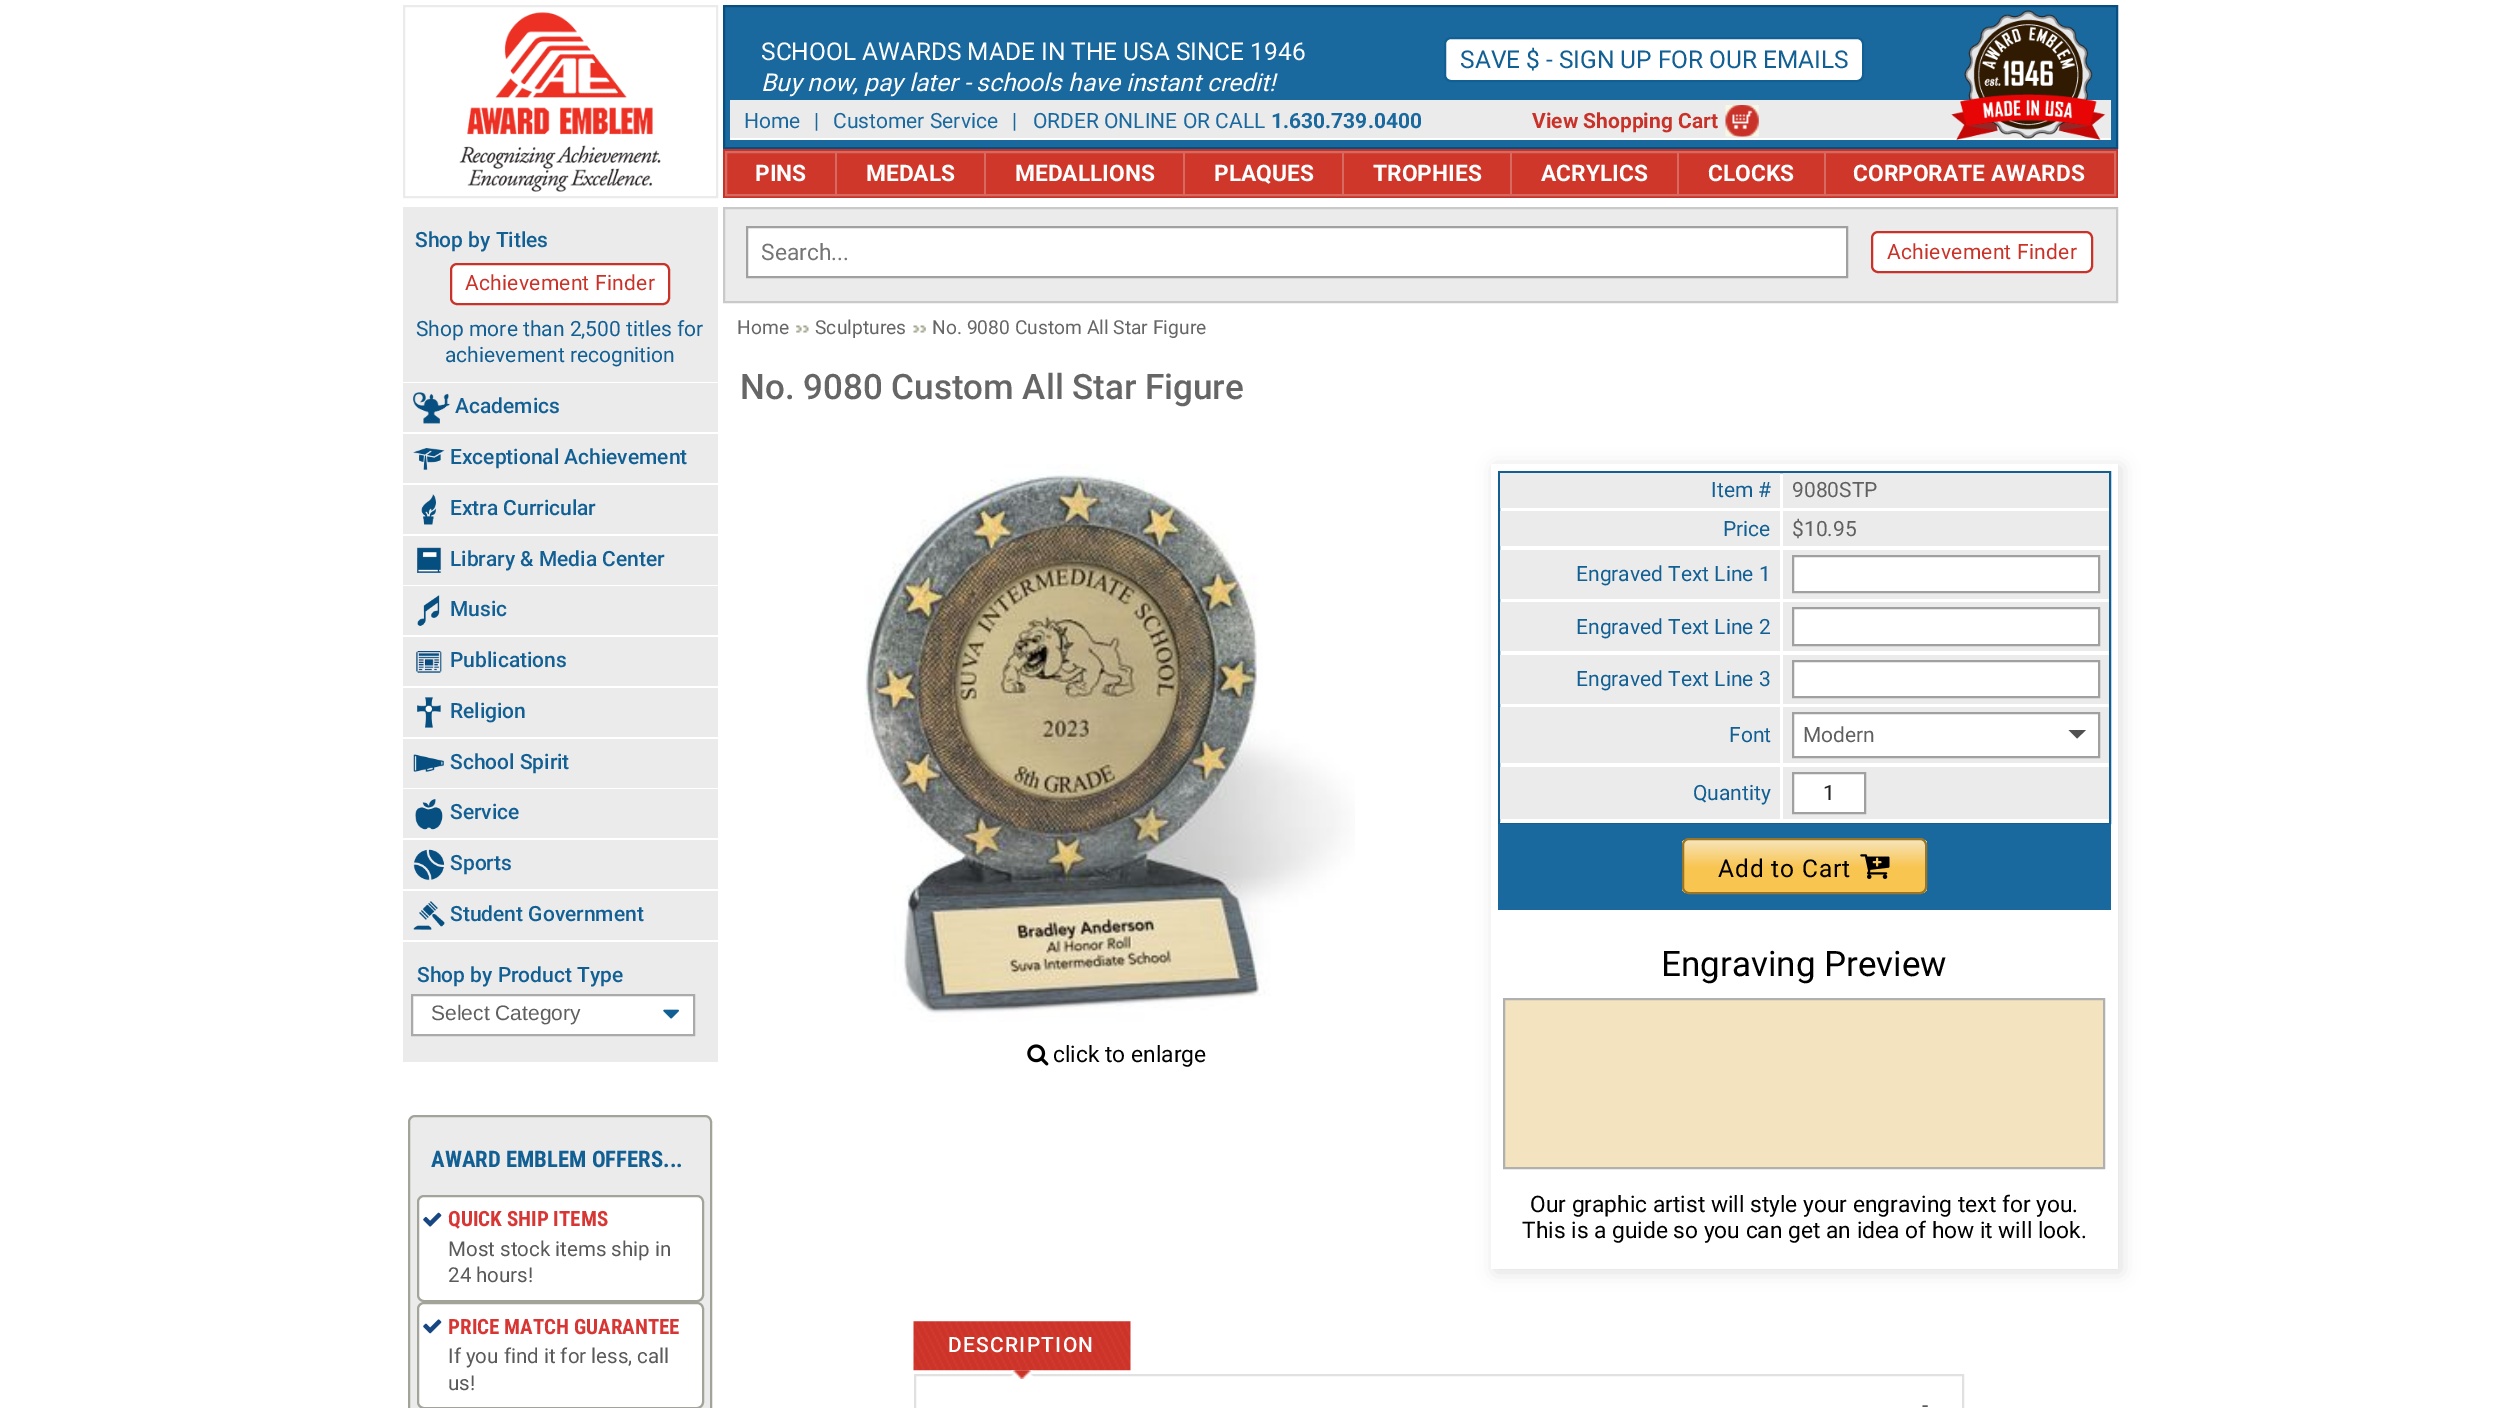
%!PS
<< /PageSize [2519 1408] /PageUsesTransparency true >> setpagedevice
/rgb { 3 { 255 div 3 1 roll } repeat setrgbcolor } def
/font { [ exch dup neg 0 0 3 -1 roll 0 0 ] selectfont } def
/text { moveto show } def
/alpha { dup .setfillconstantalpha .setstrokeconstantalpha } def
/roundrect { 5 dict begin { /r /h /w /y /x } { exch def } forall
  x r add y moveto x w add y 2 copy h add r arct x w add y h add x 1 index r arct
  x y h add x y r arct x y 2 copy exch w add exch r arct closepath end } def
/shadow { 12 dict begin { /a /b /q /h /w /y /x } { exch def } forall gsave /was 0 def
  9 -2 -9 { dup b mul 4 div /e exch def 1 sub .425 mul 2.718 exch exp 1 add a .99 .min exch div /now exch def
    1 1 now sub 1 was sub div sub alpha /was now def
    w h .min e 2 mul add 0 gt { x e sub y e sub w e 2 mul add h e 2 mul add
      q e add b .6 mul add w h .min 2 div e add .min 0 .max roundrect fill } if } for grestore end } def
/picture { 5 dict begin { /h /w /y /x /name } { exch def } forall
  gsave x y translate w h scale
  w h 8 [w 0 0 h 0 0] name (r) file false 3 colorimage grestore end } def
0 .pushpdf14devicefilter
0 1408 translate 1 -1 scale
4 setmiterlimit
255 255 255 rgb
0 0 2519 1408 rectfill
235 235 235 rgb
2 setlinewidth
404 6 313 191 rectstroke
(img_01.rgb) 459 12 202 180 picture
25 105 159 rgb
724 6 moveto 1393 0 rlineto 0 142 rlineto -1393 0 rlineto closepath gsave fill grestore
6 79 128 rgb
stroke
255 255 255 rgb
1445 38 418 43 6 roundrect gsave fill grestore
17 95 147 rgb
stroke
235 235 235 rgb
730 100 1381 38 rectfill
255 255 255 rgb
730 138 1381 2 rectfill
(img_02.rgb) 1951 10 155 130 picture
(img_03.rgb) 1725 105 34 32 picture
201 50 41 rgb
723 149 1395 49 rectfill
207 55 43 rgb
726 152 moveto 1389 0 rlineto 0 43 rlineto -1389 0 rlineto closepath gsave fill grestore
214 106 96 rgb
stroke
835 152 2 42 rectfill
984 152 2 42 rectfill
1183 152 2 42 rectfill
1342 152 2 42 rectfill
1510 152 2 42 rectfill
1677 152 2 42 rectfill
1824 152 2 42 rectfill
235 235 235 rgb
403 207 315 855 rectfill
255 255 255 rgb
451 264 218 40 6 roundrect gsave fill grestore
201 50 41 rgb
stroke
255 255 255 rgb
403 382 315 1 rectfill
403 432 315 2 rectfill
(img_04.rgb) 413 392 37 32 picture
403 483 315 2 rectfill
(img_05.rgb) 413 448 32 22 picture
403 534 315 2 rectfill
(img_06.rgb) 421 494 15 31 picture
403 585 315 1 rectfill
(img_07.rgb) 417 547 25 26 picture
403 635 315 2 rectfill
(img_08.rgb) 417 595 23 31 picture
403 686 315 2 rectfill
(img_09.rgb) 416 651 26 22 picture
403 737 315 2 rectfill
(img_10.rgb) 417 697 24 31 picture
403 788 315 1 rectfill
(img_11.rgb) 413 754 31 18 picture
403 838 315 2 rectfill
(img_12.rgb) 415 799 28 31 picture
403 889 315 2 rectfill
(img_13.rgb) 413 849 32 32 picture
403 940 315 2 rectfill
(img_14.rgb) 413 901 32 29 picture
413 996 280 38 rectfill
(img_15.rgb) 663 1009 16 10 picture
170 170 170 rgb
412 995 282 40 rectstroke
235 235 235 rgb
409 1116 302 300 6 roundrect gsave fill grestore
162 164 153 rgb
stroke
255 255 255 rgb
418 1196 285 105 6 roundrect gsave fill grestore
162 164 153 rgb
stroke
(img_16.rgb) 423 1212 19 15 picture
255 255 255 rgb
418 1303 285 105 6 roundrect gsave fill grestore
162 164 153 rgb
stroke
(img_17.rgb) 423 1319 19 15 picture
235 235 235 rgb
724 208 moveto 1393 0 rlineto 0 94 rlineto -1393 0 rlineto closepath gsave fill grestore
201 201 201 rgb
stroke
255 255 255 rgb
747 227 moveto 1100 0 rlineto 0 50 rlineto -1100 0 rlineto closepath gsave fill grestore
160 160 160 rgb
stroke
255 255 255 rgb
1872 232 220 40 6 roundrect gsave fill grestore
201 50 41 rgb
stroke
(img_18.rgb) 796 325 13 8 picture
(img_19.rgb) 913 325 13 8 picture
(img_20.rgb) 864 464 491 558 picture
(img_21.rgb) 1027 1044 22 22 picture
gsave
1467 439 moveto 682 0 rlineto 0 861 rlineto -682 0 rlineto closepath 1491 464 moveto 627 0 rlineto 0 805 rlineto -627 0 rlineto closepath eoclip newpath
221 221 221 rgb
1495 467 626 805 0 9 1 shadow
grestore
17 95 147 rgb
1499 472 611 351 rectstroke
235 235 235 rgb
1500 473 280 35 rectfill
1783 473 326 35 rectfill
1500 511 280 35 rectfill
1783 511 326 35 rectfill
1500 550 280 49 rectfill
1783 550 326 49 rectfill
255 255 255 rgb
1793 556 moveto 306 0 rlineto 0 36 rlineto -306 0 rlineto closepath gsave fill grestore
160 160 160 rgb
stroke
235 235 235 rgb
1500 602 280 49 rectfill
1783 602 326 49 rectfill
255 255 255 rgb
1793 608 moveto 306 0 rlineto 0 37 rlineto -306 0 rlineto closepath gsave fill grestore
160 160 160 rgb
stroke
235 235 235 rgb
1500 655 280 49 rectfill
1783 655 326 49 rectfill
255 255 255 rgb
1793 661 moveto 306 0 rlineto 0 36 rlineto -306 0 rlineto closepath gsave fill grestore
160 160 160 rgb
stroke
235 235 235 rgb
1500 707 280 56 rectfill
1783 707 326 56 rectfill
255 255 255 rgb
1793 713 moveto 306 0 rlineto 0 44 rlineto -306 0 rlineto closepath gsave fill grestore
160 160 160 rgb
stroke
80 80 80 rgb
2068.5 730 moveto 17.5 0 rlineto -9 8.5 rlineto closepath fill
235 235 235 rgb
1500 767 280 52 rectfill
255 255 255 rgb
1500 822 609 1 rectfill
235 235 235 rgb
1783 767 326 52 rectfill
255 255 255 rgb
1793 773 moveto 72 0 rlineto 0 40 rlineto -72 0 rlineto closepath gsave fill grestore
160 160 160 rgb
stroke
25 105 159 rgb
1498 824 613 86 rectfill
gsave
1682 838 245 56 7 roundrect clip newpath
gsave 1682 840 moveto 245 0 rlineto 0 53 rlineto -245 0 rlineto closepath clip newpath
<< /ShadingType 2 /ColorSpace /DeviceRGB /Coords [1804 840 1804 893] /Extend [true true] /Function << /FunctionType 3 /Domain [0 1] /Functions [<< /FunctionType 2 /Domain [0 1] /C0 [0.965 0.894 0.725] /C1 [0.976 0.773 0.318] /N 1 >> << /FunctionType 2 /Domain [0 1] /C0 [0.976 0.773 0.318] /C1 [0.976 0.773 0.318] /N 1 >>] /Bounds [0.52] /Encode [0 1 0 1] >> >> shfill grestore
grestore
153 118 39 rgb
1683 839 243 54 6 roundrect stroke
(img_22.rgb) 1860 854 30 25 picture
243 228 191 rgb
1504 999 moveto 600 0 rlineto 0 169 rlineto -600 0 rlineto closepath gsave fill grestore
176 176 176 rgb
stroke
(img_23.rgb) 913 1321 218 50 picture
225 225 225 rgb
915 1375 1048 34 rectstroke
(img_24.rgb) 1011 1370 22 9 picture
/Roboto-Regular 24.5 font
255 255 255 rgb
(SCHOOL AWARDS MADE IN THE USA SINCE 1946) 761 60 text
/Roboto-Italic 24.5 font
(Buy now, pay later - schools have instant credit!) 761 91 text
/Roboto-Regular 24.5 font
17 95 147 rgb
(SAVE $ - SIGN UP FOR OUR EMAILS) 1460 68 text
/Roboto-Regular 21 font
25 105 159 rgb
(Home) 744 128 text
(|) 814 128 text
(Customer Service) 833 128 text
(|   ORDER ONLINE OR CALL) 1012 128 text
/Roboto-Bold 21 font
(1.630.739.0400) 1271 128 text
201 50 41 rgb
(View Shopping Cart) 1532 128 text
/Roboto-Bold 22.75 font
255 255 255 rgb
(PINS) 755 181 text
(MEDALS) 866 181 text
(MEDALLIONS) 1015 181 text
(PLAQUES) 1214 181 text
(TROPHIES) 1373 181 text
(ACRYLICS) 1541 181 text
(CLOCKS) 1708 181 text
(CORPORATE AWARDS) 1853 181 text
/Roboto-Medium 21 font
17 95 147 rgb
(Shop by Titles) 415 247 text
/Roboto-Regular 21 font
201 50 41 rgb
465 290 moveto 0.25 0 (Achievement Finder) ashow
17 95 147 rgb
(Shop more than 2,500 titles for) 416 336 text
(achievement recognition) 445 362 text
/Roboto-Medium 21 font
(Academics) 455 413 text
(Exceptional Achievement) 450 464 text
(Extra Curricular) 450 515 text
(Library & Media Center) 450 566 text
(Music) 450 616 text
(Publications) 450 667 text
(Religion) 450 718 text
(School Spirit) 450 769 text
(Service) 450 819 text
(Sports) 450 870 text
(Student Government) 450 921 text
(Shop by Product Type) 417 982 text
/LiberationSans-Regular 21 font
96 96 96 rgb
(Select Category) 431 1020 text
/RobotoCondensed-Bold 22.75 font
17 95 147 rgb
(AWARD EMBLEM OFFERS...) 431 1167 text
/RobotoCondensed-Bold 21 font
214 54 52 rgb
(QUICK SHIP ITEMS) 448 1226 text
/Roboto-Regular 20.5 font
90 90 90 rgb
(Most stock items ship in) 448 1256 text
(24 hours!) 448 1282 text
/RobotoCondensed-Bold 21 font
214 54 52 rgb
(PRICE MATCH GUARANTEE) 448 1334 text
/Roboto-Regular 20.5 font
90 90 90 rgb
(If you find it for less, call) 448 1363 text
(us!) 448 1390 text
/Roboto-Regular 22.75 font
117 117 117 rgb
(Search...) 761 260 text
/Roboto-Regular 21 font
201 50 41 rgb
1887 259 moveto 0.25 0 (Achievement Finder) ashow
/Roboto-Regular 19.25 font
102 102 102 rgb
(Home) 737 334 text
(Sculptures) 815 334 text
(No. 9080 Custom All Star Figure) 932 334 text
/Roboto-Medium 35 font
(No. 9080 Custom All Star Figure) 740 399 text
/Roboto-Regular 22.75 font
0 0 0 rgb
(click to enlarge) 1053 1062 text
/Roboto-Regular 21 font
17 95 147 rgb
(Item #) 1711 497 text
96 96 96 rgb
(9080STP) 1792 497 text
17 95 147 rgb
(Price) 1723 536 text
96 96 96 rgb
($10.95) 1792 536 text
17 95 147 rgb
(Engraved Text Line 1) 1576 581 text
(Engraved Text Line 2) 1576 634 text
(Engraved Text Line 3) 1576 686 text
(Font) 1729 742 text
96 96 96 rgb
(Modern) 1803 742 text
17 95 147 rgb
(Quantity) 1693 800 text
32 32 32 rgb
(1) 1823 800 text
/Roboto-Regular 24.5 font
0 0 0 rgb
1718 877 moveto 0.9 0 (Add to Cart) ashow
/Roboto-Regular 35 font
(Engraving Preview) 1661 976 text
/Roboto-Regular 22.75 font
(Our graphic artist will style your engraving text for you.) 1530 1212 text
(This is a guide so you can get an idea of how it will look.) 1522 1238 text
/Roboto-Medium 21 font
255 255 255 rgb
948 1352 moveto 1.25 0 (DESCRIPTION) ashow
/Roboto-Regular 22.75 font
90 90 90 rgb
(-) 1922 1413 text
.poppdf14devicefilter showpage
